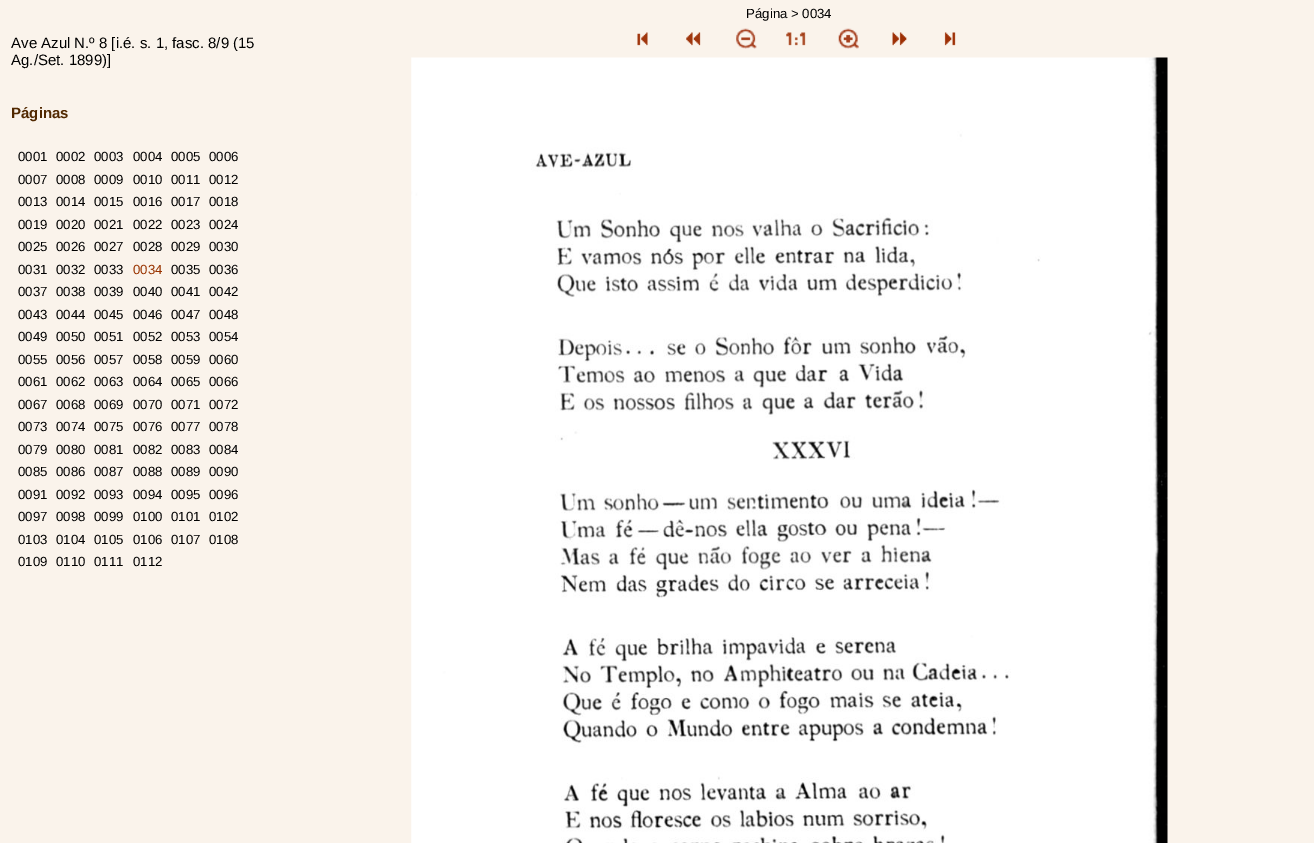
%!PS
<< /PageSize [1314 843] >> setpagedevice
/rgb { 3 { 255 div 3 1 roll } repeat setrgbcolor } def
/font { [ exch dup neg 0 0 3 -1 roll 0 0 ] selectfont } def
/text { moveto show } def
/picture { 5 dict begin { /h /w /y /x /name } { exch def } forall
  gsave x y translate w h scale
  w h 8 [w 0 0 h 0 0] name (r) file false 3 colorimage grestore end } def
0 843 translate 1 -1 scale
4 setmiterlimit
250 243 235 rgb
0 0 1314 843 rectfill
(img_01.rgb) 637 32 11 14 picture
(img_02.rgb) 686 32 15 14 picture
(img_03.rgb) 736 28 21 21 picture
(img_04.rgb) 786 32 20 14 picture
(img_05.rgb) 838 28 21 21 picture
(img_06.rgb) 892 32 15 14 picture
(img_07.rgb) 944 32 12 14 picture
(img_08.rgb) 411 57 757 786 picture
/LiberationSans-Regular 13.25 font
0 0 0 rgb
(Página > 0034) 746 18 text
/LiberationSans-Regular 15 font
(Ave Azul N.º 8 [i.é. s. 1, fasc. 8/9 \(15) 11 48 text
(Ag./Set. 1899\)]) 11 65 text
/LiberationSans-Bold 15 font
81 40 0 rgb
(Páginas) 11 118 text
/LiberationSans-Regular 13.25 font
0 0 0 rgb
(0001) 18 161 text
(0002) 56 161 text
(0003) 94 161 text
(0004) 133 161 text
(0005) 171 161 text
(0006) 209 161 text
(0007) 18 184 text
(0008) 56 184 text
(0009) 94 184 text
(0010) 133 184 text
(0011) 171 184 text
(0012) 209 184 text
(0013) 18 206 text
(0014) 56 206 text
(0015) 94 206 text
(0016) 133 206 text
(0017) 171 206 text
(0018) 209 206 text
(0019) 18 229 text
(0020) 56 229 text
(0021) 94 229 text
(0022) 133 229 text
(0023) 171 229 text
(0024) 209 229 text
(0025) 18 251 text
(0026) 56 251 text
(0027) 94 251 text
(0028) 133 251 text
(0029) 171 251 text
(0030) 209 251 text
(0031) 18 274 text
(0032) 56 274 text
(0033) 94 274 text
153 51 0 rgb
(0034) 133 274 text
0 0 0 rgb
(0035) 171 274 text
(0036) 209 274 text
(0037) 18 296 text
(0038) 56 296 text
(0039) 94 296 text
(0040) 133 296 text
(0041) 171 296 text
(0042) 209 296 text
(0043) 18 319 text
(0044) 56 319 text
(0045) 94 319 text
(0046) 133 319 text
(0047) 171 319 text
(0048) 209 319 text
(0049) 18 341 text
(0050) 56 341 text
(0051) 94 341 text
(0052) 133 341 text
(0053) 171 341 text
(0054) 209 341 text
(0055) 18 364 text
(0056) 56 364 text
(0057) 94 364 text
(0058) 133 364 text
(0059) 171 364 text
(0060) 209 364 text
(0061) 18 386 text
(0062) 56 386 text
(0063) 94 386 text
(0064) 133 386 text
(0065) 171 386 text
(0066) 209 386 text
(0067) 18 409 text
(0068) 56 409 text
(0069) 94 409 text
(0070) 133 409 text
(0071) 171 409 text
(0072) 209 409 text
(0073) 18 431 text
(0074) 56 431 text
(0075) 94 431 text
(0076) 133 431 text
(0077) 171 431 text
(0078) 209 431 text
(0079) 18 454 text
(0080) 56 454 text
(0081) 94 454 text
(0082) 133 454 text
(0083) 171 454 text
(0084) 209 454 text
(0085) 18 476 text
(0086) 56 476 text
(0087) 94 476 text
(0088) 133 476 text
(0089) 171 476 text
(0090) 209 476 text
(0091) 18 499 text
(0092) 56 499 text
(0093) 94 499 text
(0094) 133 499 text
(0095) 171 499 text
(0096) 209 499 text
(0097) 18 521 text
(0098) 56 521 text
(0099) 94 521 text
(0100) 133 521 text
(0101) 171 521 text
(0102) 209 521 text
(0103) 18 544 text
(0104) 56 544 text
(0105) 94 544 text
(0106) 133 544 text
(0107) 171 544 text
(0108) 209 544 text
(0109) 18 566 text
(0110) 56 566 text
(0111) 94 566 text
(0112) 133 566 text
showpage
